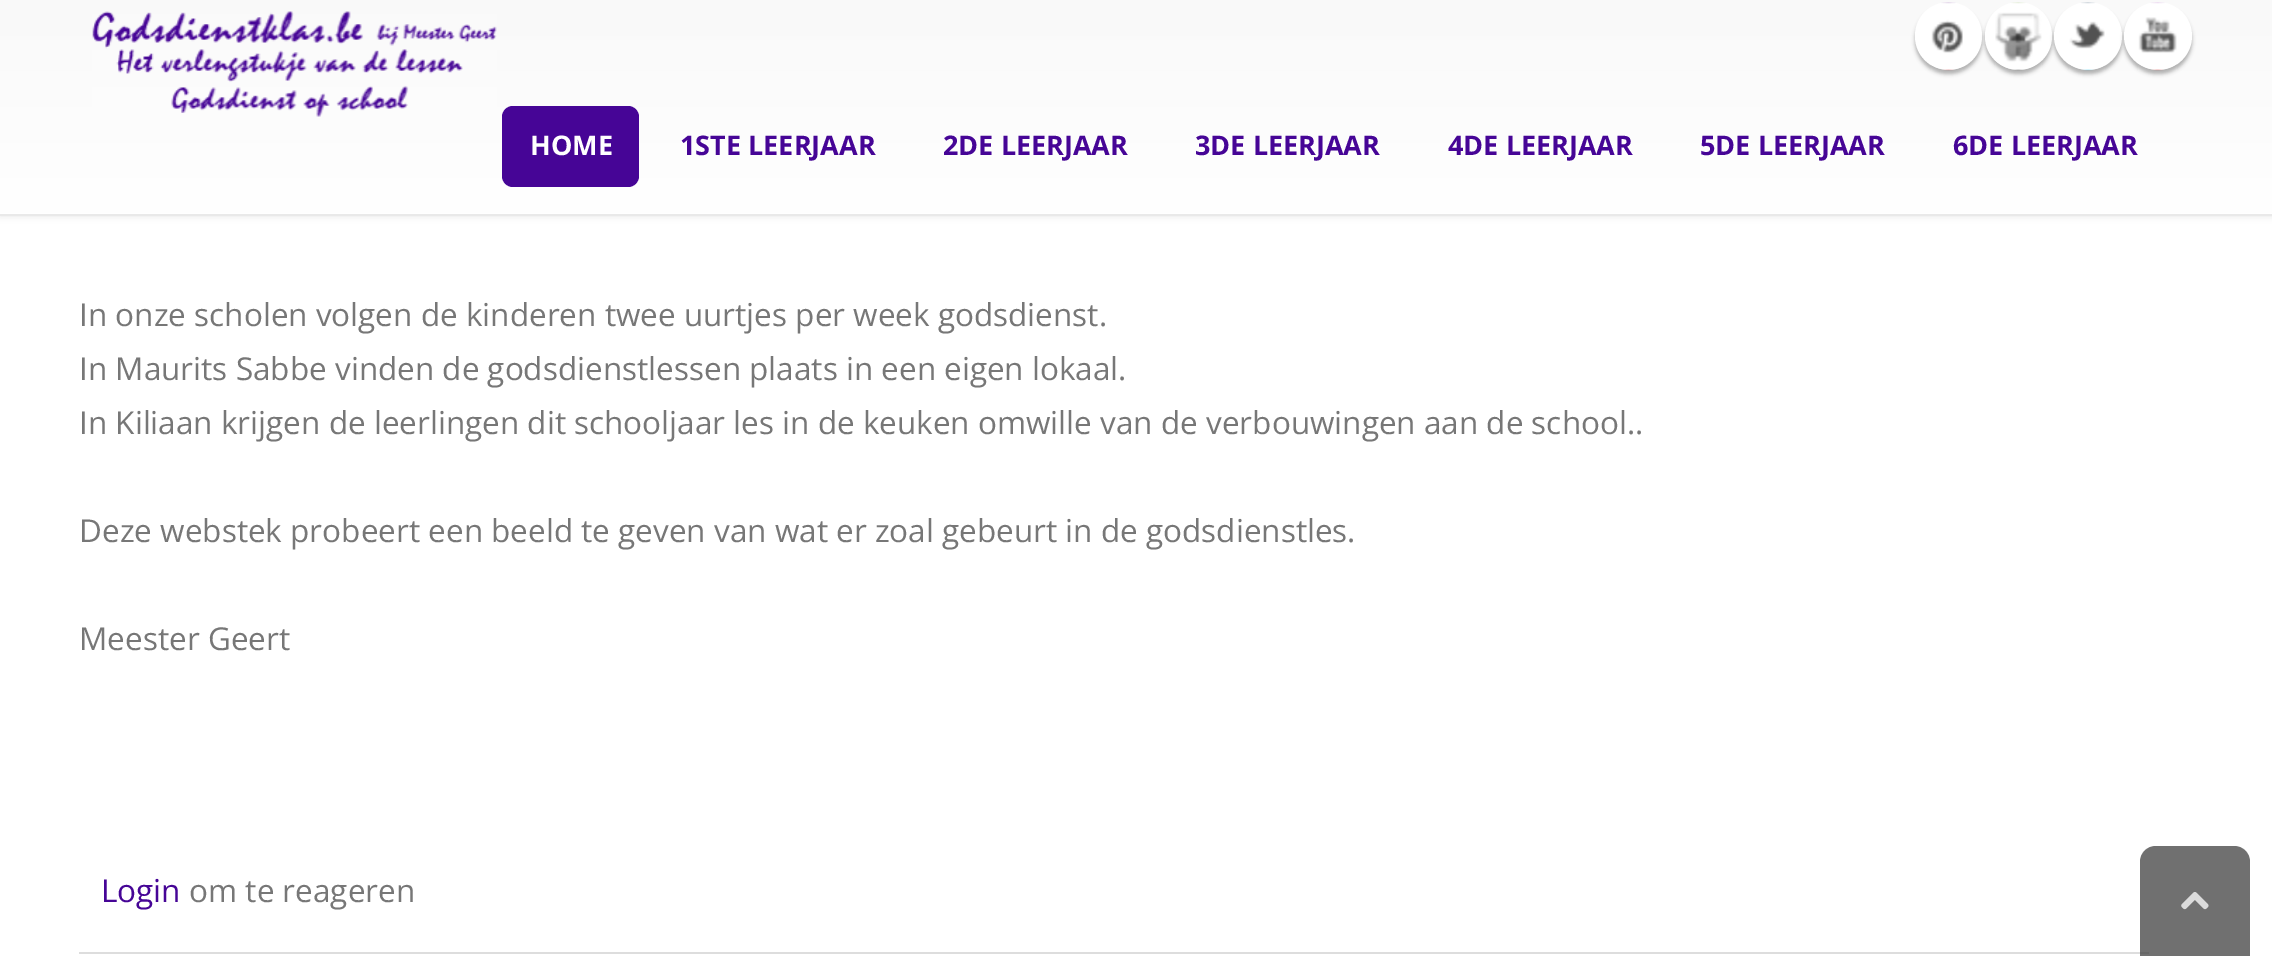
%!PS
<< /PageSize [2272 956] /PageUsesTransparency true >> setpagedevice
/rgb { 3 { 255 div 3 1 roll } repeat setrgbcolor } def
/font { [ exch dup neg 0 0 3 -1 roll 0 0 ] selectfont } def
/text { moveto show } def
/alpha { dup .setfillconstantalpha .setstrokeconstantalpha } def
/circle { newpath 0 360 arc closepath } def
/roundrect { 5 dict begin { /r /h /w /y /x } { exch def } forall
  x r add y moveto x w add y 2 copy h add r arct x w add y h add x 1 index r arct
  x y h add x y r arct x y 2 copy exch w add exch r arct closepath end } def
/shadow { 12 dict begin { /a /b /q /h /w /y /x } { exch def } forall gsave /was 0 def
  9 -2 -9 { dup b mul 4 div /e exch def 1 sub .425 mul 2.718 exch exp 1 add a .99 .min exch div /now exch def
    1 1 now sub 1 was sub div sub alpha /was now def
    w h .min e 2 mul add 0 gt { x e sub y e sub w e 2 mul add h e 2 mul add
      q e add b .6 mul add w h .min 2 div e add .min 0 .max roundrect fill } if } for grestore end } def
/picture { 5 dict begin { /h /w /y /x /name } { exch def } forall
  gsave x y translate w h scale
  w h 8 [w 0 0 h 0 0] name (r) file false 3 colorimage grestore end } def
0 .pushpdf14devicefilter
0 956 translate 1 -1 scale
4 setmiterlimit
255 255 255 rgb
0 0 2272 956 rectfill
0 0 0 rgb
0 -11 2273 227 0 3.5 0.1 shadow
gsave 0 0 moveto 2272 0 rlineto 0 214 rlineto -2272 0 rlineto closepath clip newpath
<< /ShadingType 2 /ColorSpace /DeviceRGB /Coords [1136 -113 1136 214] /Extend [true true] /Function << /FunctionType 2 /Domain [0 1] /C0 [0.965 0.965 0.965] /C1 [1 1 1] /N 1 >> >> shfill grestore
233 233 233 rgb
0 214 2272 2 rectfill
(img_01.rgb) 92 11 405 106 picture
0 0 0 rgb
1915 7 67 67 33.5 2 0.3 shadow
255 255 255 rgb
1915 2 67 68 33.5 roundrect fill
(img_02.rgb) 1931 2 32 69 picture
0 0 0 rgb
1985 7 67 67 33.5 2 0.3 shadow
255 255 255 rgb
1985 2 67 68 33.5 roundrect fill
(img_03.rgb) 1995 2 47 69 picture
0 0 0 rgb
2054 7 68 67 33.5 2 0.3 shadow
255 255 255 rgb
2088 36 34 circle fill
(img_04.rgb) 2069 2 36 69 picture
0 0 0 rgb
2124 7 68 67 33.5 2 0.3 shadow
255 255 255 rgb
2158 36 34 circle fill
(img_05.rgb) 2138 2 39 69 picture
70 5 150 rgb
502 106 137 81 11 roundrect fill
221 221 221 rgb
79 952 2070 2 rectfill
0.75 alpha
64 64 64 rgb
2156 846 moveto 78 0 rlineto 9 0 16 7 16 16 rcurveto 0 94 rlineto -110 0 rlineto 0 -94 rlineto 0 -9 7 -16 16 -16 rcurveto closepath fill
1 alpha
(img_06.rgb) 2181 892 28 18 picture
/OpenSans-Bold 27 font
255 255 255 rgb
(HOME) 530 155 text
70 5 150 rgb
(1STE LEERJAAR) 680 155 text
(2DE LEERJAAR) 943 155 text
(3DE LEERJAAR) 1195 155 text
(4DE LEERJAAR) 1448 155 text
(5DE LEERJAAR) 1700 155 text
(6DE LEERJAAR) 1953 155 text
/OpenSans-Regular 31.5 font
119 119 119 rgb
(In onze scholen volgen de kinderen twee uurtjes per week godsdienst.) 79 326 text
(In Maurits Sabbe vinden de godsdienstlessen plaats in een eigen lokaal.) 79 380 text
(In Kiliaan krijgen de leerlingen dit schooljaar les in de keuken omwille van de verbouwingen aan de school..) 79 434 text
(Deze webstek probeert een beeld te geven van wat er zoal gebeurt in de godsdienstles.) 79 542 text
(Meester Geert) 79 650 text
70 5 150 rgb
(Login) 101 902 text
119 119 119 rgb
(om te reageren) 189 902 text
.poppdf14devicefilter showpage
